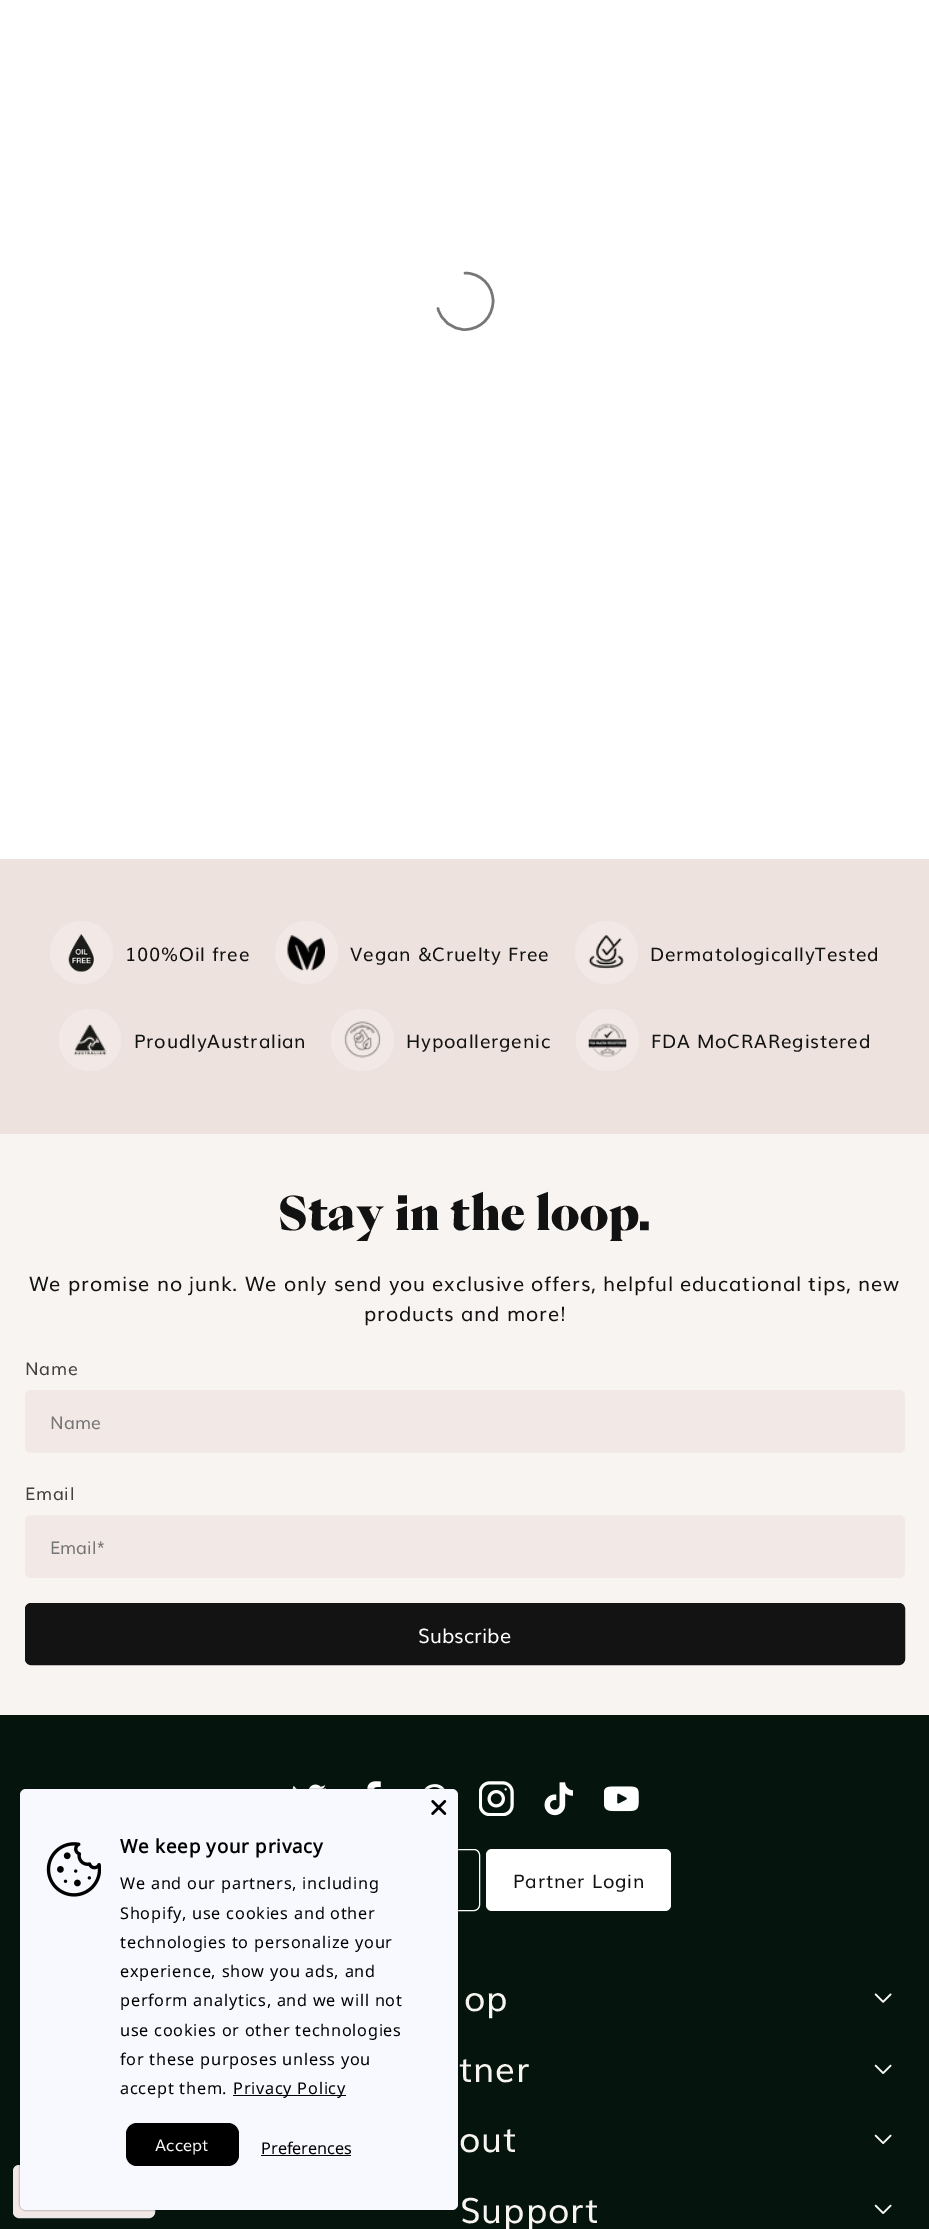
%!PS
<< /PageSize [929 2229] /PageUsesTransparency true >> setpagedevice
/rgb { 3 { 255 div 3 1 roll } repeat setrgbcolor } def
/font { [ exch dup neg 0 0 3 -1 roll 0 0 ] selectfont } def
/text { moveto show } def
/alpha { dup .setfillconstantalpha .setstrokeconstantalpha } def
/circle { newpath 0 360 arc closepath } def
/roundrect { 5 dict begin { /r /h /w /y /x } { exch def } forall
  x r add y moveto x w add y 2 copy h add r arct x w add y h add x 1 index r arct
  x y h add x y r arct x y 2 copy exch w add exch r arct closepath end } def
/shadow { 12 dict begin { /a /b /q /h /w /y /x } { exch def } forall gsave /was 0 def
  9 -2 -9 { dup b mul 4 div /e exch def 1 sub .425 mul 2.718 exch exp 1 add a .99 .min exch div /now exch def
    1 1 now sub 1 was sub div sub alpha /was now def
    w h .min e 2 mul add 0 gt { x e sub y e sub w e 2 mul add h e 2 mul add
      q e add b .6 mul add w h .min 2 div e add .min 0 .max roundrect fill } if } for grestore end } def
/picture { 5 dict begin { /h /w /y /x /name } { exch def } forall
  gsave x y translate w h scale
  w h 8 [w 0 0 h 0 0] name (r) file false 3 colorimage grestore end } def
0 .pushpdf14devicefilter
0 2229 translate 1 -1 scale
4 setmiterlimit
255 255 255 rgb
0 0 929 2229 rectfill
119 119 119 rgb
2.5 setlinewidth
1 setlinecap
465 273 moveto 15.5 0 28 12.5 28 28 rcurveto 0 16 -12.5 28.5 -28 28.5 rcurveto -13 0 -24 -9 -27 -21 rcurveto stroke
237 226 221 rgb
0 859 929 275 rectfill
242 233 230 rgb
81.5 952.5 31.5 circle fill
(img_01.rgb) 68 934 26 38 picture
306.5 952.5 31.5 circle fill
(img_02.rgb) 287 935 38 36 picture
606.5 952.5 31.5 circle fill
(img_03.rgb) 588 935 36 34 picture
90 1040 31 circle fill
(img_04.rgb) 73 1024 34 32 picture
331 1009 63 62 31 roundrect fill
(img_05.rgb) 344 1021 37 37 picture
576 1009 63 62 31 roundrect fill
(img_06.rgb) 588 1023 39 35 picture
248 244 242 rgb
0 1134 929 581 rectfill
242 233 230 rgb
25 1390 880 63 6 roundrect fill
25 1515 880 63 6 roundrect fill
20 19 19 rgb
25.5 1603.5 879 61 5.5 roundrect gsave fill grestore
1 setlinewidth
0 setlinecap
stroke
5 21 13 rgb
0 1715 929 514 rectfill
242 233 230 rgb
13.5 2165.5 141 52 5.5 roundrect gsave fill grestore
232 232 232 rgb
stroke
(img_09.rgb) 292 1784 34 5 picture
(img_10.rgb) 367 1781 14 8 picture
(img_11.rgb) 424 1784 21 5 picture
255 255 255 rgb
259.5 1849.5 220 61 5.5 roundrect stroke
0 0 0 rgb
20 1789 438 421 6 1 0.5 shadow
248 248 255 rgb
20 1789 438 421 6 roundrect fill
(img_07.rgb) 431 1800 16 15 picture
(img_08.rgb) 46 1842 55 55 picture
0 0 0 rgb
233 2095 113 1 rectfill
126 2123 113 43 11 roundrect fill
261 2155 90 1 rectfill
(img_12.rgb) 479 1781 35 35 picture
(img_13.rgb) 544 1782 29 34 picture
(img_14.rgb) 604 1786 35 26 picture
255 255 255 rgb
486 1849 185 62 6 roundrect fill
(img_15.rgb) 874 1993 18 10 picture
(img_16.rgb) 874 2064 18 10 picture
(img_16.rgb) 874 2134 18 10 picture
(img_16.rgb) 874 2204 18 10 picture
/Muli-Regular 18.75 font
18 18 18 rgb
125 961 moveto 0.75 0 (100%Oil free) ashow
350 961 moveto 0.75 0 (Vegan &Cruelty Free) ashow
650 961 moveto 0.75 0 (DermatologicallyTested) ashow
134 1048 moveto 0.75 0 (ProudlyAustralian) ashow
406 1048 moveto 0.75 0 (Hypoallergenic) ashow
651 1048 moveto 0.75 0 (FDA MoCRARegistered) ashow
/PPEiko-Black 45 font
279 1230 moveto 0.75 0 (Stay in the loop.) ashow
/Muli-Regular 20 font
29 1291 moveto 0.75 0 (We promise no junk. We only send you exclusive offers, helpful educational tips, new) ashow
364 1321 moveto 0.75 0 (products and more!) ashow
/Muli-Regular 17.5 font
66 65 64 rgb
25 1375 moveto 0.75 0 (Name) ashow
117 117 117 rgb
(Name) 50 1429 text
66 65 64 rgb
25 1500 moveto 0.75 0 (Email) ashow
117 117 117 rgb
(Email*) 50 1554 text
/Muli-Regular 20 font
255 255 255 rgb
(Subscribe) 418 1643 text
/NotoSans-Bold 18.75 font
0 0 0 rgb
120 1853 moveto 0.75 0 (We keep your privacy) ashow
/NotoSans-Regular 16.25 font
120 1889 moveto 0.75 0 (We and our partners, including) ashow
120 1919 moveto 0.75 0 (Shopify, use cookies and other) ashow
120 1948 moveto 0.75 0 (technologies to personalize your) ashow
120 1977 moveto 0.75 0 (experience, show you ads, and) ashow
120 2006 moveto 0.75 0 (perform analytics, and we will not) ashow
120 2036 moveto 0.75 0 (use cookies or other technologies) ashow
120 2065 moveto 0.75 0 (for these purposes unless you) ashow
120 2094 moveto 0.75 0 (accept them.) ashow
233 2094 moveto 0.75 0 (Privacy Policy) ashow
/Muli-Regular 16.25 font
248 248 248 rgb
(Accept) 155 2151 text
/NotoSans-Regular 16.25 font
0 0 0 rgb
(Preferences) 261 2154 text
/Muli-Regular 18.75 font
18 18 18 rgb
513 1888 moveto 0.75 0 (Partner Login) ashow
/Muli-Regular 35 font
248 244 242 rgb
464 2011 moveto 0.75 0 (op) ashow
459 2082 moveto 0.75 0 (tner) ashow
459 2152 moveto 0.75 0 (out) ashow
460 2223 moveto 0.75 0 (Support) ashow
.poppdf14devicefilter showpage
